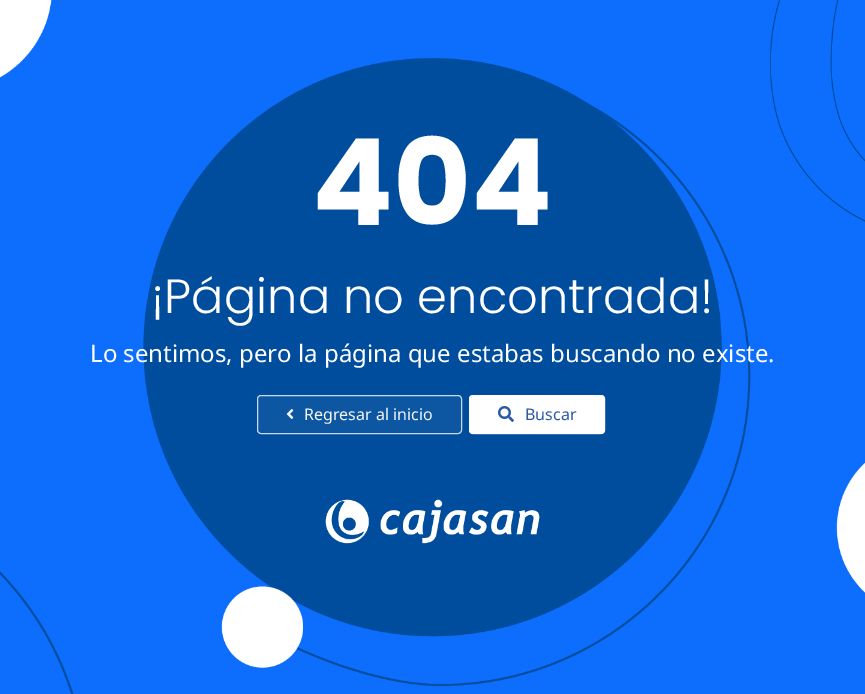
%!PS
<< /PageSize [865 694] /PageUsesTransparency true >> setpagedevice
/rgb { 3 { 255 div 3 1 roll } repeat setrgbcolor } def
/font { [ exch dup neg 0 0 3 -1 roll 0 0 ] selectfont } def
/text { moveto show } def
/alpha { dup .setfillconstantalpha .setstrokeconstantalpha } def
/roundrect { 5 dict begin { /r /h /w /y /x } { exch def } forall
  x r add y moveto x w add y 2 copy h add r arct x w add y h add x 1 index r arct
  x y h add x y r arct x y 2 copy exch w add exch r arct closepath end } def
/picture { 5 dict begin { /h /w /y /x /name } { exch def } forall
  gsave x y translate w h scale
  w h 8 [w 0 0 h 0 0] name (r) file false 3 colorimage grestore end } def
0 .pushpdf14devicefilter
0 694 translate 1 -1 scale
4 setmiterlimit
13 110 253 rgb
0 0 865 694 rectfill
(img_01.rgb) 0 0 865 694 picture
13 86 162 rgb
257 395 205 39 4 roundrect fill
0.77 alpha
255 255 255 rgb
257.5 395.5 204 38 3.5 roundrect stroke
1 alpha
(img_02.rgb) 286 409 8 10 picture
469 395 136 39 4 roundrect fill
0.77 alpha
469.5 395.5 135 38 3.5 roundrect stroke
1 alpha
(img_03.rgb) 498 406 16 16 picture
(img_04.rgb) 325 499 215 45 picture
/Poppins-Bold 120 font
(404) 312 225 text
/Poppins-Light 48 font
(¡Página no encontrada!) 151 313 text
/NotoSans-Regular 24 font
(Lo sentimos, pero la página que estabas buscando no existe.) 90 362 text
/NotoSans-Regular 16 font
245 245 245 rgb
(Regresar al inicio) 304 420 text
42 89 165 rgb
(Buscar) 525 420 text
.poppdf14devicefilter showpage
